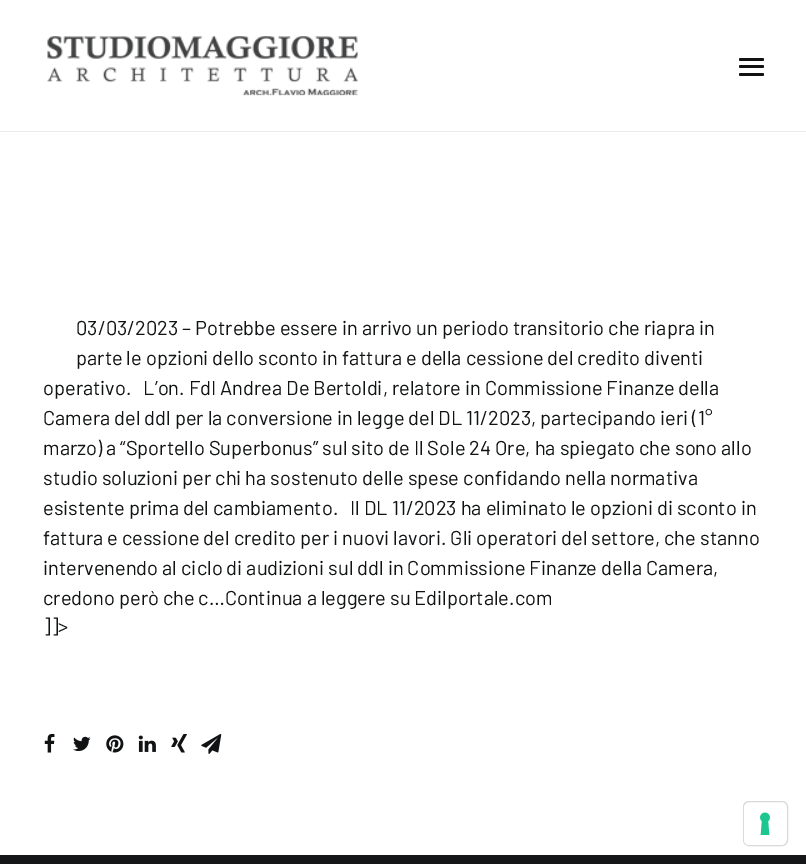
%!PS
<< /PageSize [806 864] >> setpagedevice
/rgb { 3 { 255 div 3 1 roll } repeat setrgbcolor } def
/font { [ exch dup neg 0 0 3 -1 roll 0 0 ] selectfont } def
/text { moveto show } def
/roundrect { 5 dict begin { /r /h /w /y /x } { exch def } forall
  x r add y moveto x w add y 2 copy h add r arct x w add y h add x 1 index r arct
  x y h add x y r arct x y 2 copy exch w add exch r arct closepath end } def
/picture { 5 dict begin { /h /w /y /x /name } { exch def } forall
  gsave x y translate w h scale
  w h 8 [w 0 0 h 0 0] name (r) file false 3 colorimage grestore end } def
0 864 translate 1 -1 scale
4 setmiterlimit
255 255 255 rgb
0 0 806 864 rectfill
235 235 235 rgb
0 131 806 1 rectfill
(img_01.rgb) 47 36 311 60 picture
16 18 19 rgb
739 65 25 3 1.5 roundrect fill
739 58 25 3 1.5 roundrect fill
739 73 25 3 1.5 roundrect fill
(img_02.rgb) 44 733 11 20 picture
(img_03.rgb) 73 736 18 16 picture
(img_04.rgb) 106 735 18 18 picture
(img_05.rgb) 138 735 18 17 picture
(img_06.rgb) 171 734 16 19 picture
(img_07.rgb) 201 733 21 21 picture
20 22 24 rgb
0 855 806 9 rectfill
217 217 217 rgb
743.5 801.5 44 44 5.5 roundrect stroke
255 255 255 rgb
744 803 42 42 5 roundrect fill
(img_08.rgb) 760 812 10 23 picture
/Barlow-Regular 20 font
16 18 19 rgb
(03/03/2023 – Potrebbe essere in arrivo un periodo transitorio che riapra in) 76 335 text
(parte le opzioni dello sconto in fattura e della cessione del credito diventi) 76 365 text
(operativo.   L’on. FdI Andrea De Bertoldi, relatore in Commissione Finanze della) 43 395 text
(Camera del ddl per la conversione in legge del DL 11/2023, partecipando ieri \(1°) 43 425 text
(marzo\) a “Sportello Superbonus” sul sito de Il Sole 24 Ore, ha spiegato che sono allo) 43 455 text
(studio soluzioni per chi ha sostenuto delle spese confidando nella normativa) 43 485 text
(esistente prima del cambiamento.   Il DL 11/2023 ha eliminato le opzioni di sconto in) 43 515 text
(fattura e cessione del credito per i nuovi lavori. Gli operatori del settore, che stanno) 43 545 text
(intervenendo al ciclo di audizioni sul ddl in Commissione Finanze della Camera,) 43 575 text
(credono però che c…Continua a leggere su Edilportale.com) 43 605 text
(]]>) 43 633 text
showpage
